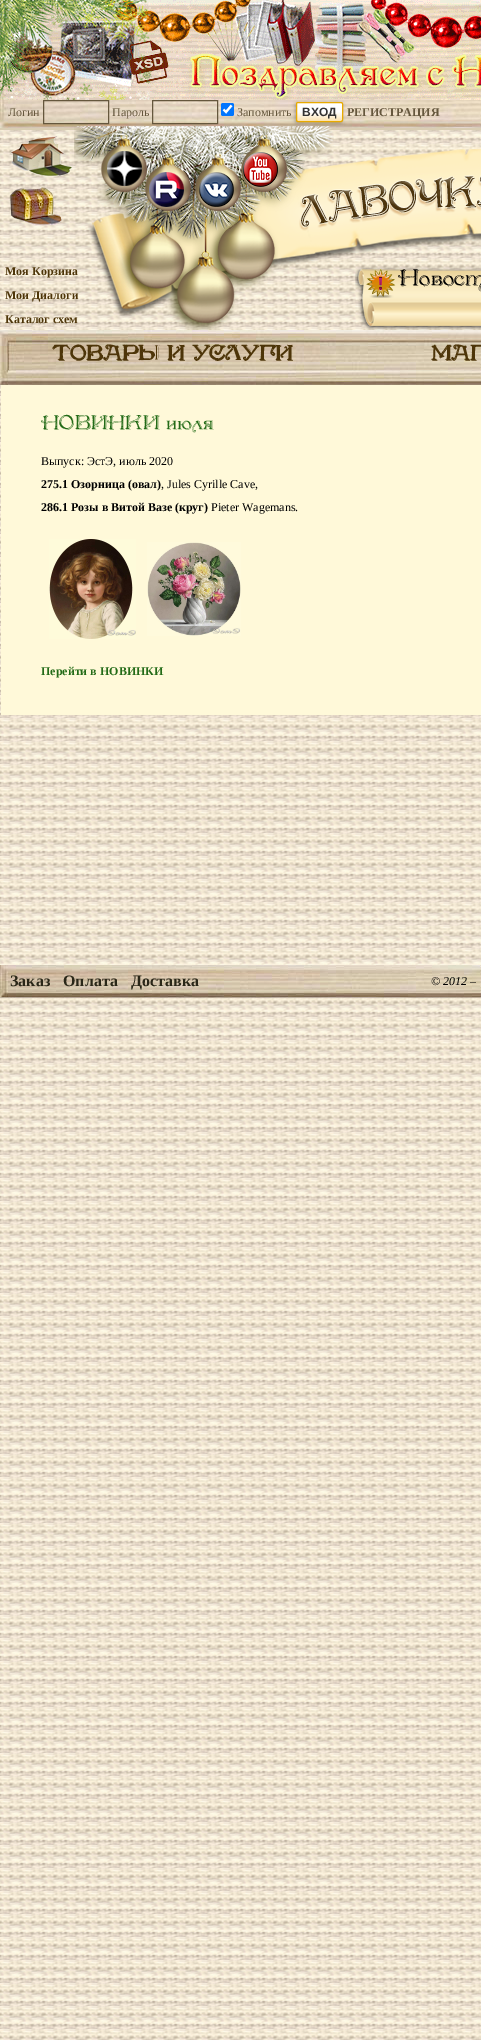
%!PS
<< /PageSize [481 2040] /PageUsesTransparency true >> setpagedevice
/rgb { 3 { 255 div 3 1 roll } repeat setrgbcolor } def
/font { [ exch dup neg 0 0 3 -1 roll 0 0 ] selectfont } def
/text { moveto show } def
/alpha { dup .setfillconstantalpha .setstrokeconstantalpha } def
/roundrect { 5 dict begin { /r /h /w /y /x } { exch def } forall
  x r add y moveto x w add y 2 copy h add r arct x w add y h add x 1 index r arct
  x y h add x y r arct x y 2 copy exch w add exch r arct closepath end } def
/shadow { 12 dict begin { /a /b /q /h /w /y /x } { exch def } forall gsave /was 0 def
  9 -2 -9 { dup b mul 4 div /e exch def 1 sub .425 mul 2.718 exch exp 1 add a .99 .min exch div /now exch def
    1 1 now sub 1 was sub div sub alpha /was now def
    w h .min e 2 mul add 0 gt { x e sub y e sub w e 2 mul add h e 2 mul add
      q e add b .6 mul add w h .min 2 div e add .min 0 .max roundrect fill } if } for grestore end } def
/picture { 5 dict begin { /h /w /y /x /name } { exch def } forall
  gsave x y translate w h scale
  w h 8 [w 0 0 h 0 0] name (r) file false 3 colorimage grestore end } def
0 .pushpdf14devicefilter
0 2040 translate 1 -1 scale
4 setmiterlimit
255 255 255 rgb
0 0 481 2040 rectfill
(img_01.rgb) 0 130 481 1910 picture
(img_02.rgb) 0 0 481 100 picture
(img_03.rgb) 0 100 481 28 picture
217 205 179 rgb
0 128 481 2 rectfill
101 87 61 rgb
43.5 100.5 65 23 rectstroke
152.5 100.5 65 23 rectstroke
0 117 255 rgb
221 103 13 13 2 roundrect fill
255 255 255 rgb
2.1 setlinewidth
223.5 109.5 moveto 2.5 2.5 rlineto 5.5 -6.5 rlineto stroke
0 0 0 rgb
295 103 47 20 2 2 0.3 shadow
gsave
296 102 47 20 2 roundrect clip newpath
gsave 296 103 moveto 47 0 rlineto 0 18 rlineto -47 0 rlineto closepath clip newpath
<< /ShadingType 2 /ColorSpace /DeviceRGB /Coords [297 103 297 121] /Extend [true true] /Function << /FunctionType 3 /Domain [0 1] /Functions [<< /FunctionType 2 /Domain [0 1] /C0 [1 1 1] /C1 [1 1 1] /N 1 >> << /FunctionType 2 /Domain [0 1] /C0 [1 1 1] /C1 [0.988 0.89 0.69] /N 1 >>] /Bounds [0.5] /Encode [0 1 0 1] >> >> shfill grestore
grestore
232 170 0 rgb
1 setlinewidth
296.5 102.5 46 19 1.5 roundrect stroke
(img_09.rgb) 88 147 393 171 picture
(img_10.rgb) 10 136 62 41 picture
(img_11.rgb) 10 187 52 39 picture
(img_12.rgb) 355 267 126 34 picture
(img_13.rgb) 366 269 30 29 picture
(img_14.rgb) 358 298 123 32 picture
(img_15.rgb) 0 330 481 55 picture
255 249 217 rgb
1 385 480 330 rectfill
(img_16.rgb) 49 539 87 100 picture
(img_17.rgb) 147 542 94 94 picture
(img_18.rgb) 0 965 481 33 picture
/LiberationSerif-Regular 12 font
101 87 61 rgb
(Логин) 8 116 text
(Пароль) 112 116 text
(Запомнить) 237 116 text
/LiberationSans-Bold 12 font
51 51 51 rgb
(ВХОД) 302 116 text
/LiberationSerif-Bold 12 font
101 87 61 rgb
(РЕГИСТРАЦИЯ) 347 116 text
77 53 9 rgb
(Моя Корзина) 5 275 text
(Мои Диалоги) 5 299 text
(Каталог схем) 5 323 text
(img_04.rgb) 74 126 260 204 picture
(img_08.rgb) 243 152 35 35 picture
(img_07.rgb) 199 172 35 35 picture
(img_06.rgb) 149 172 35 35 picture
(img_05.rgb) 107 151 35 35 picture
/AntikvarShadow-Regular 23 font
0 0 0 rgb
(Новост) 398 285 text
/AntikvarShadow-Bold 21 font
77 53 9 rgb
(ТОВАРЫ И УСЛУГИ) 52 360 text
(МАГ) 431 360 text
/AntikvarShadow-Regular 20 font
35 107 23 rgb
(НОВИНКИ июля) 41 429 text
/LiberationSerif-Regular 12 font
0 0 0 rgb
(Выпуск: ЭстЭ, июль 2020) 41 465 text
/LiberationSerif-Bold 12 font
(275.1 Озорница \(овал\)) 41 488 text
/LiberationSerif-Regular 12 font
(, Jules Cyrille Cave,) 161 488 text
/LiberationSerif-Bold 12 font
(286.1 Розы в Витой Вазе \(круг\)) 41 511 text
/LiberationSerif-Regular 12 font
(Pieter Wagemans.) 211 511 text
/LiberationSerif-Bold 12 font
35 107 23 rgb
(Перейти в НОВИНКИ) 41 675 text
/LiberationSerif-Bold 16 font
42 39 24 rgb
(Заказ) 10 986 text
(Оплата) 63 986 text
(Доставка) 131 986 text
/LiberationSerif-Italic 12 font
0 0 0 rgb
(© 2012 –) 431 985 text
.poppdf14devicefilter showpage
